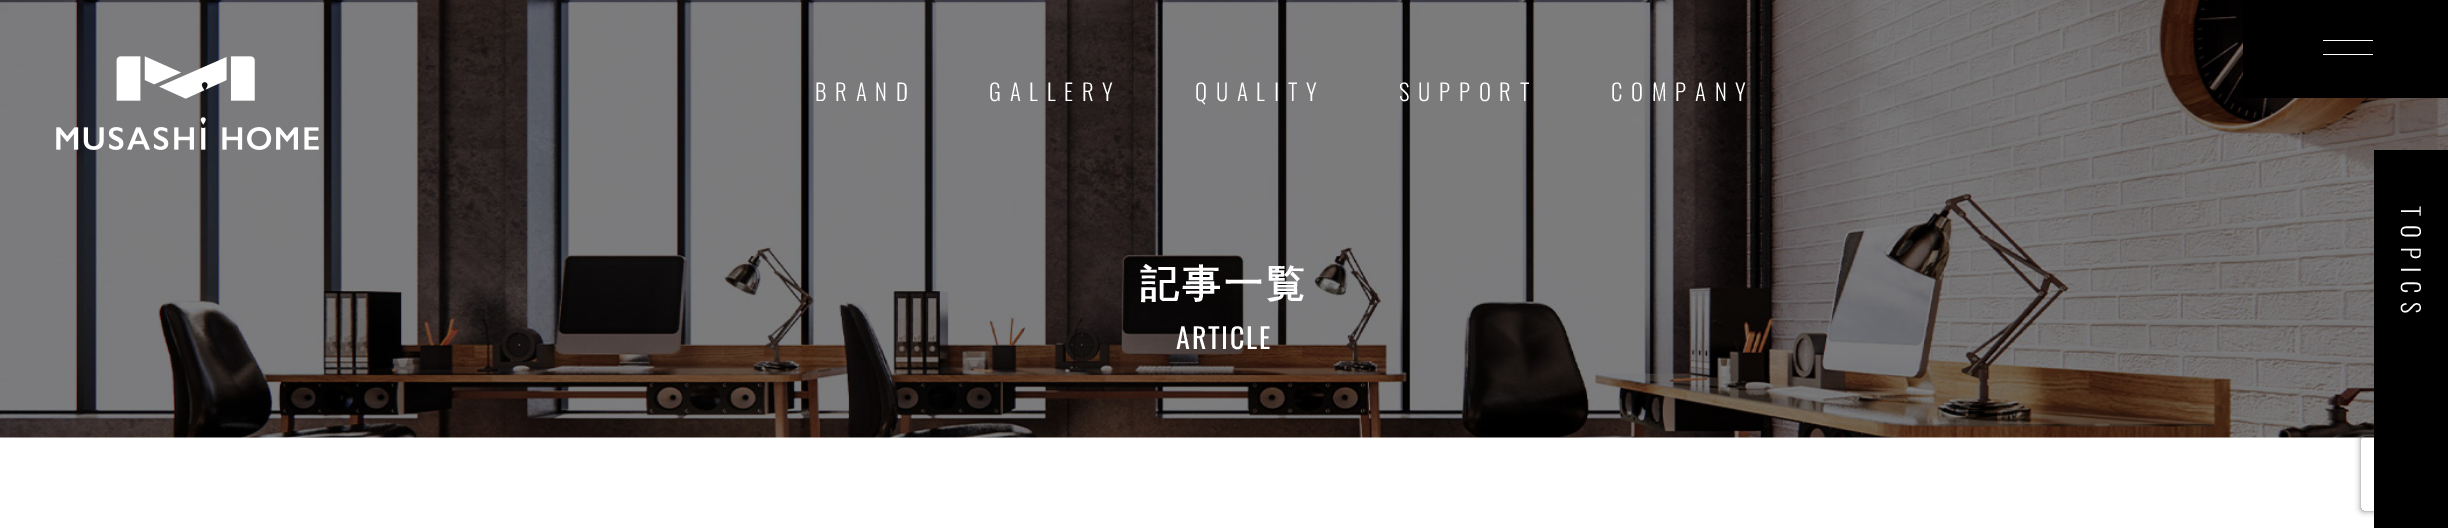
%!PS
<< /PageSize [2448 528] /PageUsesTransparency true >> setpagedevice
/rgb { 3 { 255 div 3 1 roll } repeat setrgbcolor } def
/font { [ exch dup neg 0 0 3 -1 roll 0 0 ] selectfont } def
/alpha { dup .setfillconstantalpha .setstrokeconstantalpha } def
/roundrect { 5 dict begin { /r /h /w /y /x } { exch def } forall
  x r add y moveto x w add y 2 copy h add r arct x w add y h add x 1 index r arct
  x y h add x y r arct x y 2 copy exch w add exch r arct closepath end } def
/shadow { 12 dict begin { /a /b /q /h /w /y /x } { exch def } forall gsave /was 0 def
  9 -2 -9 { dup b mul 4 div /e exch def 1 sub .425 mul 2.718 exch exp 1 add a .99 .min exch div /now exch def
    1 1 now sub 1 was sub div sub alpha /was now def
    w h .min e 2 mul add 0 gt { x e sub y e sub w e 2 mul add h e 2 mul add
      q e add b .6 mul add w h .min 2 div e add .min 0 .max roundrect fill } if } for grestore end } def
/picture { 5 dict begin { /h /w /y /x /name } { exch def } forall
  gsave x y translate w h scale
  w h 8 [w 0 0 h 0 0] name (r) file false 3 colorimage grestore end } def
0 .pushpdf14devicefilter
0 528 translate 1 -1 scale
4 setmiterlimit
255 255 255 rgb
0 0 2448 528 rectfill
(img_02.rgb) 0 0 2448 438 picture
(img_01.rgb) 56 56 263 94 picture
0 0 0 rgb
2243 0 205 98 rectfill
255 255 255 rgb
2323 40 50 1 rectfill
2323 54 50 1 rectfill
gsave
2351 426 moveto 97 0 rlineto 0 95 rlineto -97 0 rlineto closepath 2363.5 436 moveto 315 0 rlineto 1.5 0 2.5 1 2.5 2.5 rcurveto 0 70 rlineto 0 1.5 -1 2.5 -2.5 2.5 rcurveto -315 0 rlineto -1.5 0 -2.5 -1 -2.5 -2.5 rcurveto 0 -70 rlineto 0 -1.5 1 -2.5 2.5 -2.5 rcurveto closepath eoclip newpath
128 128 128 rgb
2361 436 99 75 2.5 3 1 shadow
grestore
0 0 0 rgb
2374 150 74 378 rectfill
/Oswald-Light 22.75 font
255 255 255 rgb
815 101 moveto 8.75 0 (BRAND) ashow
989 101 moveto 8.75 0 (GALLERY) ashow
1195 101 moveto 8.75 0 (QUALITY) ashow
1399 101 moveto 8.75 0 (SUPPORT) ashow
1611 101 moveto 8.75 0 (COMPANY) ashow
/WenQuanYiZenHei-Bold 38.5 font
1140 297 moveto 3.5 0 (記事一覧) ashow
/Oswald-Regular 28 font
1176 349 moveto 1.75 0 (ARTICLE) ashow
/Oswald-Light 24.5 font
gsave 2401 206 translate 90 rotate 0 0 moveto 8.75 0 (TOPICS) ashow grestore
.poppdf14devicefilter showpage
